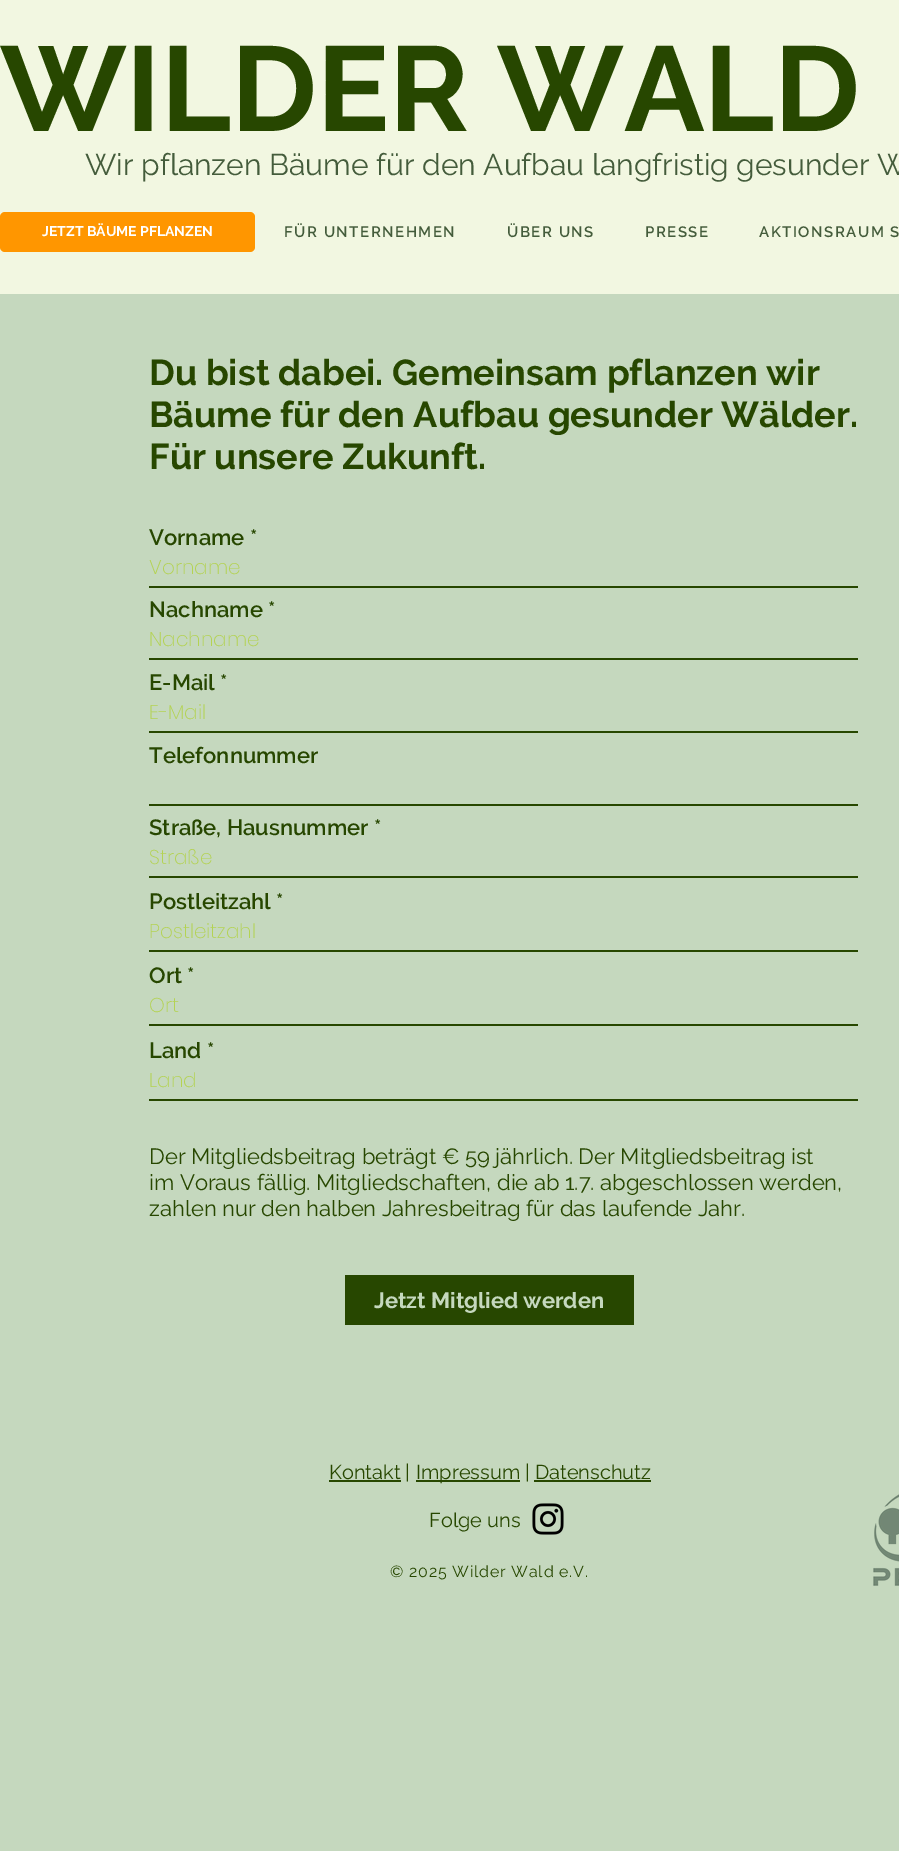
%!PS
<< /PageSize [899 1851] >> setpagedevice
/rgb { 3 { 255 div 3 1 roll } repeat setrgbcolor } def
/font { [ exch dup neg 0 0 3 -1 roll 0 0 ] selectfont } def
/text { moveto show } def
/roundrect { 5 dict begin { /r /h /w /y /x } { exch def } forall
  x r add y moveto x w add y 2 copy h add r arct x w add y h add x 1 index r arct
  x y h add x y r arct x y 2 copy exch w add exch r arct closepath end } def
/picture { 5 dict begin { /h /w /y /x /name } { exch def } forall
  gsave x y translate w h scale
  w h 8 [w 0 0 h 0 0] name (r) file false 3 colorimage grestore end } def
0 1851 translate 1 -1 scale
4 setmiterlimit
197 216 190 rgb
0 0 899 1851 rectfill
242 247 225 rgb
0 0 899 294 rectfill
255 150 0 rgb
0 212 255 40 5 roundrect fill
39 71 0 rgb
149 586 709 2 rectfill
149 658 709 2 rectfill
149 731 709 2 rectfill
149 804 709 2 rectfill
149 876 709 2 rectfill
149 950 709 2 rectfill
149 1024 709 2 rectfill
149 1099 709 2 rectfill
345 1275 289 50 rectfill
329 1480 72 2 rectfill
416 1480 104 2 rectfill
534 1480 117 2 rectfill
(img_01.rgb) 873 1494 26 92 picture
(img_02.rgb) 532 1503 32 32 picture
/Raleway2-Bold 120 font
(WILDER WALD) 0 131 text
/Raleway-Regular 30 font
68 92 59 rgb
(Wir pflanzen Bäume für den Aufbau langfristig gesunder W) 85 175 text
/Raleway-Bold 14 font
255 255 255 rgb
(JETZT BÄUME PFLANZEN) 42 236 text
/Raleway-SemiBold 15 font
68 92 59 rgb
284 237 moveto 1.5 0 (FÜR UNTERNEHMEN) ashow
507 237 moveto 1.5 0 (ÜBER UNS) ashow
645 237 moveto 1.5 0 (PRESSE) ashow
759 237 moveto 1.5 0 (AKTIONSRAUM S) ashow
/Raleway-Bold 36 font
39 71 0 rgb
(Du bist dabei. Gemeinsam pflanzen wir) 149 385 text
(Bäume für den Aufbau gesunder Wälder.) 149 427 text
(Für unsere Zukunft.) 149 469 text
/Raleway-SemiBold 22 font
(Vorname *) 149 545 text
/Poppins-ExtraLight 20 font
180 211 82 rgb
(Vorname) 149 574 text
/Raleway-SemiBold 22 font
39 71 0 rgb
(Nachname *) 149 617 text
/Poppins-ExtraLight 20 font
180 211 82 rgb
(Nachname) 149 646 text
/Raleway-SemiBold 22 font
39 71 0 rgb
(E-Mail *) 149 690 text
/Poppins-ExtraLight 20 font
180 211 82 rgb
(E-Mail) 149 719 text
/Raleway-SemiBold 22 font
39 71 0 rgb
(Telefonnummer) 149 763 text
(Straße, Hausnummer *) 149 835 text
/Poppins-ExtraLight 20 font
180 211 82 rgb
(Straße) 149 864 text
/Raleway-SemiBold 22 font
39 71 0 rgb
(Postleitzahl *) 149 909 text
/Poppins-ExtraLight 20 font
180 211 82 rgb
(Postleitzahl) 149 938 text
/Raleway-SemiBold 22 font
39 71 0 rgb
(Ort *) 149 983 text
/Poppins-ExtraLight 20 font
180 211 82 rgb
(Ort) 149 1012 text
/Raleway-SemiBold 22 font
39 71 0 rgb
(Land *) 149 1058 text
/Poppins-ExtraLight 20 font
180 211 82 rgb
(Land) 149 1087 text
/Raleway-Regular 22 font
39 71 0 rgb
(Der Mitgliedsbeitrag beträgt € 59 jährlich. Der Mitgliedsbeitrag ist) 149 1164 text
(im Voraus fällig. Mitgliedschaften, die ab 1.7. abgeschlossen werden,) 149 1190 text
(zahlen nur den halben Jahresbeitrag für das laufende Jahr.) 149 1216 text
/Raleway-Bold 22 font
197 216 190 rgb
(Jetzt Mitglied werden) 374 1308 text
/Raleway-Regular 20 font
39 71 0 rgb
(Kontakt |) 329 1479 text
(Impressum | Datenschutz) 416 1479 text
(Folge uns) 429 1527 text
/Raleway-Regular 16 font
390 1577 moveto 0.8 0 (© 2025 Wilder Wald e.V.) ashow
showpage
